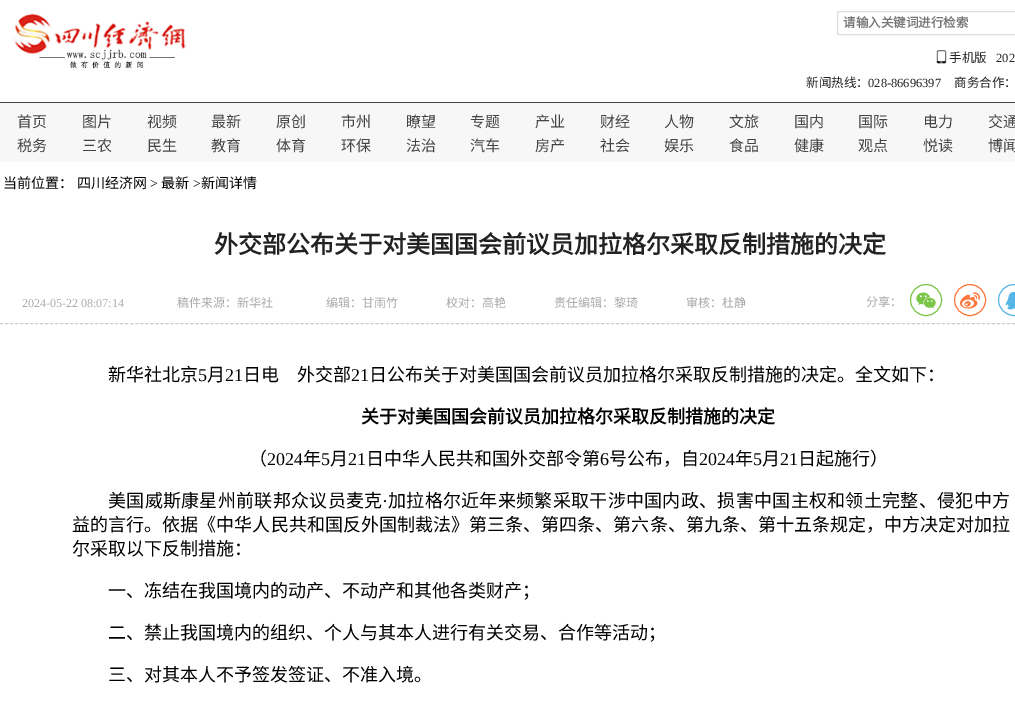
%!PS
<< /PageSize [1015 701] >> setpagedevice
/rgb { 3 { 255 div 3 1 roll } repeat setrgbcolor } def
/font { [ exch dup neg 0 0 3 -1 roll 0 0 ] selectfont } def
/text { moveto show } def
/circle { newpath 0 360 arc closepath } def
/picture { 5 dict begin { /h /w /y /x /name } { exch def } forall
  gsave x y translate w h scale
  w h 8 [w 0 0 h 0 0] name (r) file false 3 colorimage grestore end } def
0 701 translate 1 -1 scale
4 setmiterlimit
255 255 255 rgb
0 0 1015 701 rectfill
(img_01.rgb) 12 13 175 56 picture
221 221 221 rgb
837.5 11.5 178 23 rectstroke
(img_02.rgb) 936 50 11 14 picture
247 247 247 rgb
0 103 1015 59 rectfill
68 68 68 rgb
0 102 1015 1 rectfill
204 204 204 rgb
[3 2.01] 0 setdash
0 323.5 moveto 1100 0 rlineto stroke
123 197 73 rgb
[] 0 setdash
926 300 15.5 circle stroke
(img_03.rgb) 916 292 20 17 picture
255 118 59 rgb
970 300 15.5 circle stroke
(img_04.rgb) 960 292 20 17 picture
86 182 231 rgb
1014 300 15.5 circle stroke
(img_05.rgb) 1005 291 10 19 picture
/NotoSansCJKSC-Bold 12.5 font
117 117 117 rgb
(请输入关键词进行检索) 843 27 text
/NotoSansCJKSC-Regular 12.5 font
34 34 34 rgb
(手机版) 949 62 text
/LiberationSerif-Regular 12.5 font
(202) 996 62 text
/NotoSansCJKSC-Regular 12.5 font
(新闻热线：) 806 87 text
/LiberationSerif-Regular 12.5 font
(028-86696397) 868 87 text
/NotoSansCJKSC-Regular 12.5 font
(商务合作：) 954 87 text
/NotoSansCJKSC-Regular 15 font
68 68 68 rgb
(首页) 17 127 text
(图片) 82 127 text
(视频) 147 127 text
(最新) 211 127 text
(原创) 276 127 text
(市州) 341 127 text
(瞭望) 406 127 text
(专题) 470 127 text
(产业) 535 127 text
(财经) 600 127 text
(人物) 664 127 text
(文旅) 729 127 text
(国内) 794 127 text
(国际) 858 127 text
(电力) 923 127 text
(交通) 988 127 text
(税务) 17 151 text
(三农) 82 151 text
(民生) 147 151 text
(教育) 211 151 text
(体育) 276 151 text
(环保) 341 151 text
(法治) 406 151 text
(汽车) 470 151 text
(房产) 535 151 text
(社会) 600 151 text
(娱乐) 664 151 text
(食品) 729 151 text
(健康) 794 151 text
(观点) 858 151 text
(悦读) 923 151 text
(博闻) 988 151 text
/NotoSansCJKSC-Regular 14 font
0 0 0 rgb
(当前位置：) 3 188 text
(四川经济网) 77 188 text
/LiberationSerif-Regular 14 font
(>) 150 188 text
/NotoSansCJKSC-Regular 14 font
(最新) 161 188 text
/LiberationSerif-Regular 14 font
(>) 193 188 text
/NotoSansCJKSC-Regular 14 font
(新闻详情) 201 188 text
/NotoSansCJKSC-Bold 24 font
34 34 34 rgb
(外交部公布关于对美国国会前议员加拉格尔采取反制措施的决定) 214 253 text
/LiberationSerif-Regular 12 font
170 170 170 rgb
(2024-05-22 08:07:14) 22 307 text
/NotoSansCJKSC-Regular 12 font
(稿件来源：新华社) 177 307 text
(编辑：甘雨竹) 326 307 text
(校对：高艳) 446 307 text
(责任编辑：黎琦) 554 307 text
(审核：杜静) 686 307 text
(分享：) 866 306 text
/NotoSansCJKSC-Regular 18 font
0 0 0 rgb
(新华社北京) 108 381 text
/LiberationSerif-Regular 18 font
(5) 198 381 text
/NotoSansCJKSC-Regular 18 font
(月) 207 381 text
/LiberationSerif-Regular 18 font
(21) 225 381 text
/NotoSansCJKSC-Regular 18 font
(日电) 243 381 text
(外交部) 297 381 text
/LiberationSerif-Regular 18 font
(21) 351 381 text
/NotoSansCJKSC-Regular 18 font
(日公布关于对美国国会前议员加拉格尔采取反制措施的决定。全文如下：) 369 381 text
/NotoSansCJKSC-Bold 18 font
(关于对美国国会前议员加拉格尔采取反制措施的决定) 361 423 text
/NotoSansCJKSC-Regular 18 font
(（) 249 465 text
/LiberationSerif-Regular 18 font
(2024) 267 465 text
/NotoSansCJKSC-Regular 18 font
(年) 303 465 text
/LiberationSerif-Regular 18 font
(5) 321 465 text
/NotoSansCJKSC-Regular 18 font
(月) 330 465 text
/LiberationSerif-Regular 18 font
(21) 348 465 text
/NotoSansCJKSC-Regular 18 font
(日中华人民共和国外交部令第) 366 465 text
/LiberationSerif-Regular 18 font
(6) 600 465 text
/NotoSansCJKSC-Regular 18 font
(号公布，自) 609 465 text
/LiberationSerif-Regular 18 font
(2024) 699 465 text
/NotoSansCJKSC-Regular 18 font
(年) 735 465 text
/LiberationSerif-Regular 18 font
(5) 753 465 text
/NotoSansCJKSC-Regular 18 font
(月) 762 465 text
/LiberationSerif-Regular 18 font
(21) 780 465 text
/NotoSansCJKSC-Regular 18 font
(日起施行）) 798 465 text
108 507 moveto 0.3 0 (美国威斯康星州前联邦众议员麦克) ashow
/LiberationSerif-Regular 18 font
382 507 moveto 0.3 0 (·) ashow
/NotoSansCJKSC-Regular 18 font
388 507 moveto 0.3 0 (加拉格尔近年来频繁采取干涉中国内政、损害中国主权和领土完整、侵犯中方) ashow
72 531 moveto 0.05 0 (益的言行。依据《中华人民共和国反外国制裁法》第三条、第四条、第六条、第九条、第十五条规定，中方决定对加拉) ashow
(尔采取以下反制措施：) 72 555 text
(一、冻结在我国境内的动产、不动产和其他各类财产；) 108 597 text
(二、禁止我国境内的组织、个人与其本人进行有关交易、合作等活动；) 108 639 text
(三、对其本人不予签发签证、不准入境。) 108 681 text
showpage
